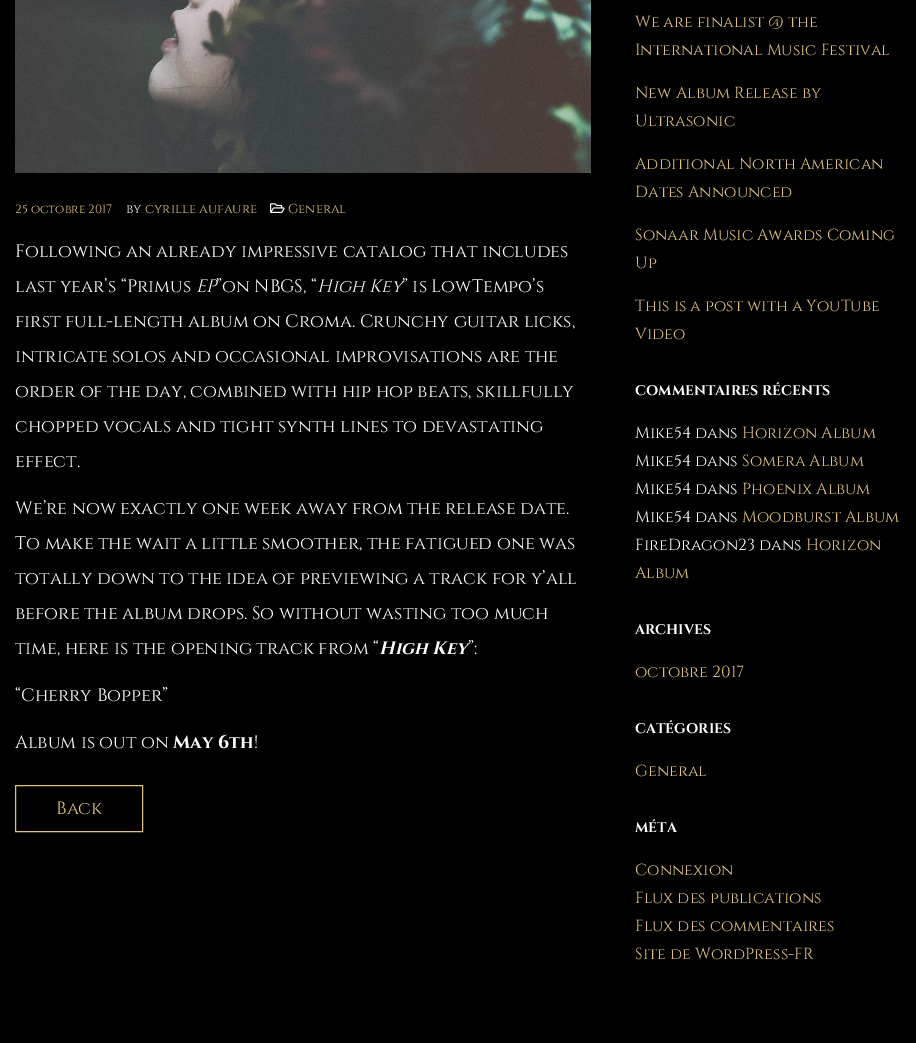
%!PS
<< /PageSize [916 1043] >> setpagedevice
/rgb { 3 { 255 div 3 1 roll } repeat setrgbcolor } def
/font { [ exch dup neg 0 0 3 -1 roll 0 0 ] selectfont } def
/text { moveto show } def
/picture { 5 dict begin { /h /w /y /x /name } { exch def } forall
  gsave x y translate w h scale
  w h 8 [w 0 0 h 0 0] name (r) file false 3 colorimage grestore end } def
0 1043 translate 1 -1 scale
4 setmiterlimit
0 0 0 rgb
0 0 916 1043 rectfill
(img_01.rgb) 15 0 576 173 picture
(img_02.rgb) 270 203 15 10 picture
223 195 125 rgb
15.5 785.5 127 46 rectstroke
/Cinzel-Regular 12 font
(25 octobre 2017) 15 213 text
/Cinzel-Regular 13 font
255 255 255 rgb
(by) 126 213 text
223 195 125 rgb
(cyrille aufaure) 145 213 text
(General) 288 213 text
/Cinzel-Regular 18 font
255 255 255 rgb
(Following an already impressive catalog that includes) 15 257 text
(last year’s “Primus) 15 292 text
/Cinzel-Italic 18 font
(EP) 196 292 text
/Cinzel-Regular 18 font
(”on NBGS, “) 216 292 text
/Cinzel-Italic 18 font
(High Key) 317 292 text
/Cinzel-Regular 18 font
(” is LowTempo’s) 402 292 text
(first full-length album on Croma. Crunchy guitar licks,) 15 327 text
(intricate solos and occasional improvisations are the) 15 362 text
(order of the day, combined with hip hop beats, skillfully) 15 397 text
(chopped vocals and tight synth lines to devastating) 15 432 text
(effect.) 15 467 text
(We’re now exactly one week away from the release date.) 15 514 text
(To make the wait a little smoother, the fatigued one was) 15 549 text
(totally down to the idea of previewing a track for y’all) 15 584 text
(before the album drops. So without wasting too much) 15 619 text
(time, here is the opening track from “) 15 654 text
/Cinzel-BoldItalic 18 font
(High Key) 379 654 text
/Cinzel-Regular 18 font
(”:) 468 654 text
(“Cherry Bopper”) 15 701 text
(Album is out on) 15 748 text
/Cinzel-Bold 18 font
(May 6th) 173 748 text
/Cinzel-Regular 18 font
(!) 254 748 text
223 195 125 rgb
(Back) 56 814 text
/Cinzel-Regular 16 font
(We are finalist @ the) 635 27 text
(International Music Festival) 635 55 text
(New Album Release by) 635 98 text
(Ultrasonic) 635 126 text
(Additional North American) 635 169 text
(Dates Announced) 635 197 text
(Sonaar Music Awards Coming) 635 240 text
(Up) 635 268 text
(This is a post with a YouTube) 635 311 text
(Video) 635 339 text
/Cinzel-Bold 14 font
255 255 255 rgb
(COMMENTAIRES RÉCENTS) 635 395 text
/Cinzel-Regular 16 font
(Mike54 dans) 635 438 text
223 195 125 rgb
(Horizon Album) 742 438 text
255 255 255 rgb
(Mike54 dans) 635 466 text
223 195 125 rgb
(Somera Album) 742 466 text
255 255 255 rgb
(Mike54 dans) 635 494 text
223 195 125 rgb
(Phoenix Album) 742 494 text
255 255 255 rgb
(Mike54 dans) 635 522 text
223 195 125 rgb
(Moodburst Album) 742 522 text
255 255 255 rgb
(FireDragon23 dans) 635 550 text
223 195 125 rgb
(Horizon) 806 550 text
(Album) 635 578 text
/Cinzel-Bold 14 font
255 255 255 rgb
(ARCHIVES) 635 634 text
/Cinzel-Regular 16 font
223 195 125 rgb
(octobre 2017) 635 677 text
/Cinzel-Bold 14 font
255 255 255 rgb
(CATÉGORIES) 635 733 text
/Cinzel-Regular 16 font
223 195 125 rgb
(General) 635 776 text
/Cinzel-Bold 14 font
255 255 255 rgb
(MÉTA) 635 832 text
/Cinzel-Regular 16 font
223 195 125 rgb
(Connexion) 635 875 text
(Flux des publications) 635 903 text
(Flux des commentaires) 635 931 text
(Site de WordPress-FR) 635 959 text
showpage
